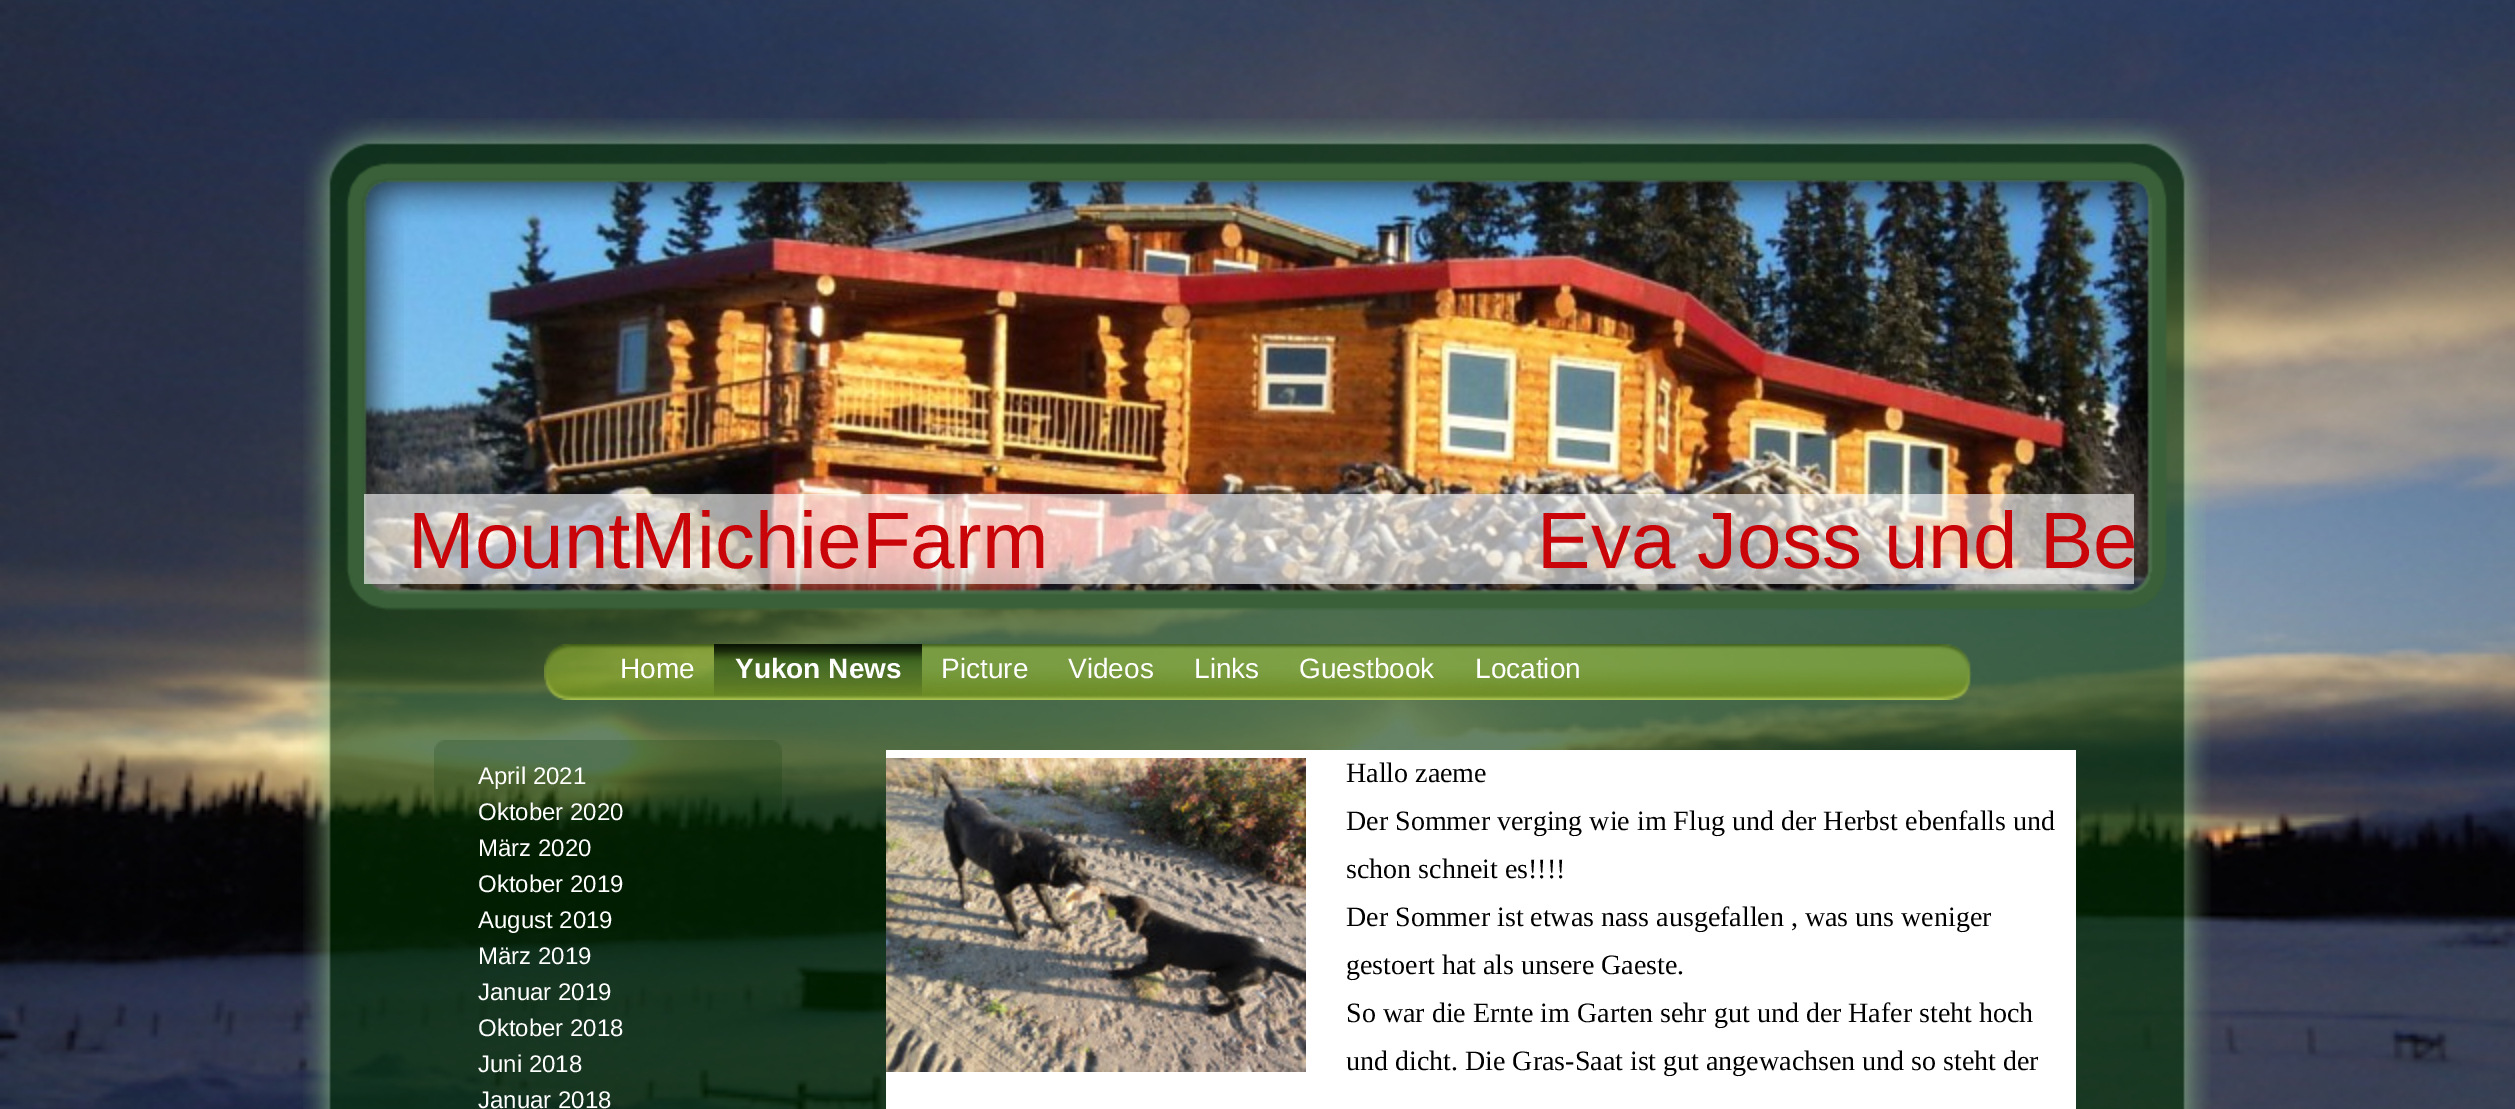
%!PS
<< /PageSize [2515 1109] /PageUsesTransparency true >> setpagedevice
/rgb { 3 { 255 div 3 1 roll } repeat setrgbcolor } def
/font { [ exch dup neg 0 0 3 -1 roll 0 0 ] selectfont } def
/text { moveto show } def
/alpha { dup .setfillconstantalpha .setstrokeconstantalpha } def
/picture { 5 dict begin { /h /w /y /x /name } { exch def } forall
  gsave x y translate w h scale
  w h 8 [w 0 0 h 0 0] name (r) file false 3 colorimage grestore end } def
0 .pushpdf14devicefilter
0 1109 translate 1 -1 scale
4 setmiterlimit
255 255 255 rgb
0 0 2515 1109 rectfill
(img_01.rgb) 0 0 2515 1109 picture
(img_06.rgb) 364 180 1786 420 picture
(img_02.rgb) 304 118 1906 108 picture
(img_03.rgb) 303 226 101 278 picture
(img_04.rgb) 2110 226 99 278 picture
(img_05.rgb) 303 504 1903 120 picture
0.62 alpha
364 494 1770 90 rectfill
1 alpha
(img_07.rgb) 304 624 1906 116 picture
(img_08.rgb) 544 644 1427 28 picture
(img_09.rgb) 544 672 1428 28 picture
(img_10.rgb) 714 644 208 52 picture
(img_11.rgb) 303 740 1908 369 picture
(img_12.rgb) 434 740 348 85 picture
886 750 1190 48 rectfill
886 990 1190 119 rectfill
(img_13.rgb) 886 758 420 314 picture
1306 798 770 192 rectfill
/LiberationSans-Regular 80 font
201 5 9 rgb
(MountMichieFarm                      Eva Joss und Be) 408 568 text
/LiberationSans-Regular 28 font
255 255 255 rgb
(Home) 620 678 text
/LiberationSans-Bold 28 font
(Yukon News) 735 678 text
/LiberationSans-Regular 28 font
(Picture) 941 678 text
(Videos) 1068 678 text
(Links) 1194 678 text
(Guestbook) 1299 678 text
(Location) 1475 678 text
/LiberationSerif-Regular 28 font
0 0 0 rgb
(Hallo zaeme) 1346 782 text
(Der Sommer verging wie im Flug und der Herbst ebenfalls und) 1346 830 text
(schon schneit es!!!!) 1346 878 text
(Der Sommer ist etwas nass ausgefallen , was uns weniger) 1346 926 text
(gestoert hat als unsere Gaeste.) 1346 974 text
(So war die Ernte im Garten sehr gut und der Hafer steht hoch) 1346 1022 text
(und dicht. Die Gras-Saat ist gut angewachsen und so steht der) 1346 1070 text
/LiberationSans-Regular 24 font
255 255 255 rgb
(April 2021) 478 784 text
(Oktober 2020) 478 820 text
(März 2020) 478 856 text
(Oktober 2019) 478 892 text
(August 2019) 478 928 text
(März 2019) 478 964 text
(Januar 2019) 478 1000 text
(Oktober 2018) 478 1036 text
(Juni 2018) 478 1072 text
(Januar 2018) 478 1108 text
.poppdf14devicefilter showpage
